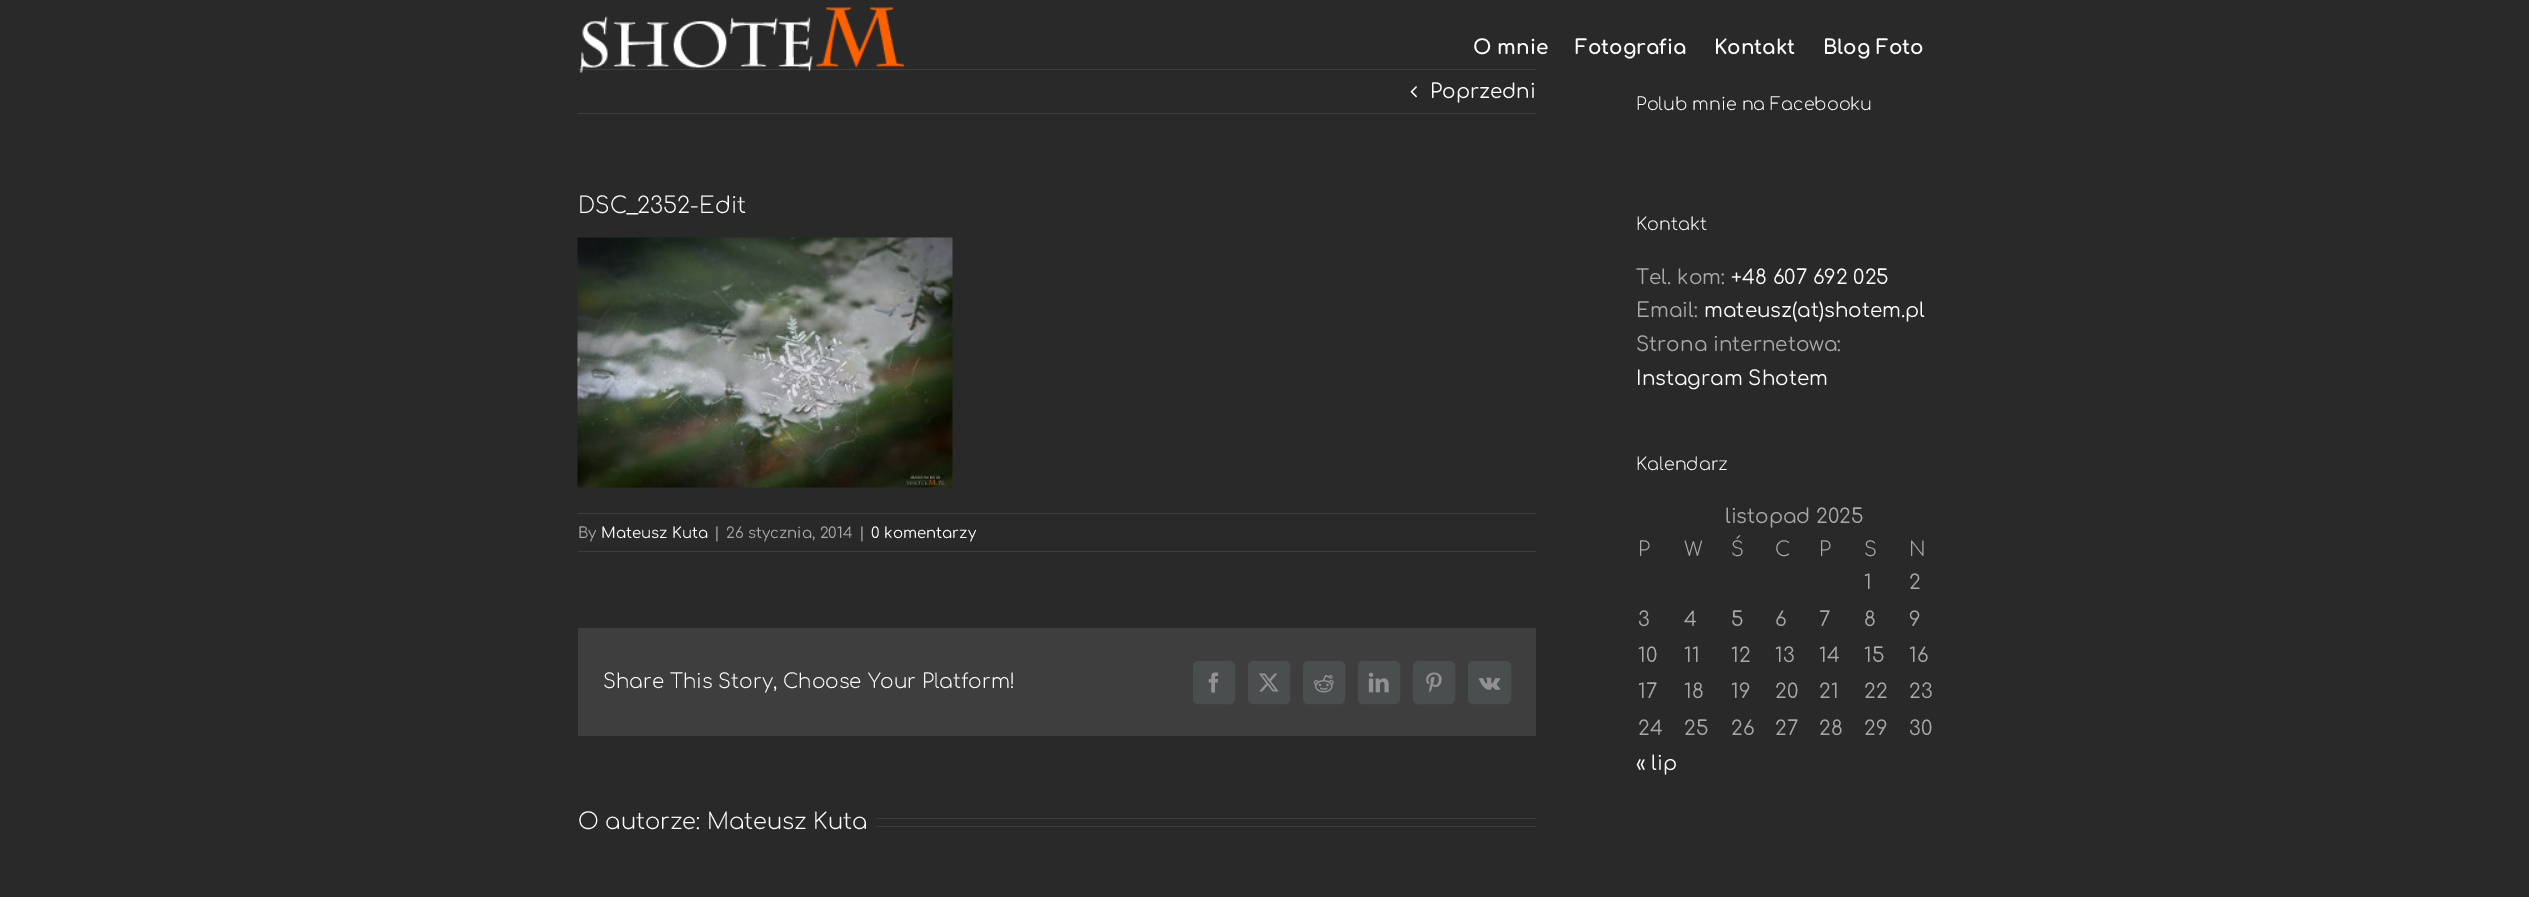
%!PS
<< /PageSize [2529 897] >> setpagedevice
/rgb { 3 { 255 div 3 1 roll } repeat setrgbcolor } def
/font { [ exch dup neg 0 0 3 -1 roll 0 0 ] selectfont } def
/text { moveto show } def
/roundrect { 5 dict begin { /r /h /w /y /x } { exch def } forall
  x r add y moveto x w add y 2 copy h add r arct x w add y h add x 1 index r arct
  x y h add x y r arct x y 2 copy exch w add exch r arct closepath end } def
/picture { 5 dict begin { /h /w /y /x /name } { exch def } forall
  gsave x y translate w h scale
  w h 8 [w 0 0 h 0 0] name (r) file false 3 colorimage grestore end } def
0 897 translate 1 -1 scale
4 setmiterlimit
41 41 42 rgb
0 0 2529 897 rectfill
62 62 62 rgb
578 69 958 1 rectfill
(img_01.rgb) 579 7 326 66 picture
578 113 958 1 rectfill
(img_02.rgb) 1410 86 7 12 picture
(img_03.rgb) 577 237 376 251 picture
578 513 958 1 rectfill
578 551 958 1 rectfill
578 628 958 108 rectfill
75 78 79 rgb
1193.5 661.5 41 42 4.5 roundrect gsave fill grestore
stroke
(img_04.rgb) 1208 672 11 21 picture
1248.5 661.5 41 42 4.5 roundrect gsave fill grestore
stroke
(img_05.rgb) 1259 673 20 19 picture
1303.5 661.5 41 42 4.5 roundrect gsave fill grestore
stroke
(img_06.rgb) 1313 675 21 18 picture
1358.5 661.5 41 42 4.5 roundrect gsave fill grestore
stroke
(img_07.rgb) 1368 672 21 21 picture
1413.5 661.5 41 42 4.5 roundrect gsave fill grestore
stroke
(img_08.rgb) 1426 672 16 21 picture
1468.5 661.5 42 42 4.5 roundrect gsave fill grestore
stroke
(img_09.rgb) 1478 677 23 13 picture
62 62 62 rgb
876 818 660 1 rectfill
876 826 660 1 rectfill
/Comfortaa-Bold 20 font
255 255 255 rgb
(O mnie) 1473 54 text
(Fotografia) 1575 54 text
(Kontakt) 1714 54 text
(Blog Foto) 1823 54 text
/Comfortaa-Regular 20 font
(Poprzedni) 1430 98 text
/Comfortaa-Light 22.5 font
(DSC_2352-Edit) 578 213 text
/Comfortaa-Regular 15 font
170 169 169 rgb
(By) 578 538 text
255 255 255 rgb
(Mateusz Kuta) 601 538 text
170 169 169 rgb
(|) 714 538 text
(26 stycznia, 2014) 726 538 text
(|) 859 538 text
255 255 255 rgb
(0 komentarzy) 871 538 text
/Comfortaa-Light 20 font
(Share This Story, Choose Your Platform!) 603 688 text
/Comfortaa-Light 22.5 font
(O autorze: Mateusz Kuta) 578 829 text
/Comfortaa-Light 17.5 font
(Polub mnie na Facebooku) 1636 110 text
(Kontakt) 1636 230 text
/Comfortaa-Regular 20 font
170 169 169 rgb
(Tel. kom:) 1636 284 text
255 255 255 rgb
(+48 607 692 025) 1731 284 text
170 169 169 rgb
(Email:) 1636 317 text
255 255 255 rgb
(mateusz\(at\)shotem.pl) 1704 317 text
170 169 169 rgb
(Strona internetowa:) 1636 351 text
255 255 255 rgb
(Instagram Shotem) 1636 385 text
/Comfortaa-Light 17.5 font
(Kalendarz) 1636 470 text
/Comfortaa-Regular 20 font
170 169 169 rgb
(listopad 2025) 1725 523 text
/Comfortaa-Light 20 font
(P) 1638 556 text
(W) 1684 556 text
(Ś) 1731 556 text
(C) 1775 556 text
(P) 1819 556 text
(S) 1864 556 text
(N) 1909 556 text
/Comfortaa-Regular 20 font
(1) 1864 589 text
(2) 1909 589 text
(3) 1638 626 text
(4) 1684 626 text
(5) 1731 626 text
(6) 1775 626 text
(7) 1819 626 text
(8) 1864 626 text
(9) 1909 626 text
(10) 1638 662 text
(11) 1684 662 text
(12) 1731 662 text
(13) 1775 662 text
(14) 1819 662 text
(15) 1864 662 text
(16) 1909 662 text
(17) 1638 698 text
(18) 1684 698 text
(19) 1731 698 text
(20) 1775 698 text
(21) 1819 698 text
(22) 1864 698 text
(23) 1909 698 text
(24) 1638 735 text
(25) 1684 735 text
(26) 1731 735 text
(27) 1775 735 text
(28) 1819 735 text
(29) 1864 735 text
(30) 1909 735 text
255 255 255 rgb
(« lip) 1636 770 text
showpage
